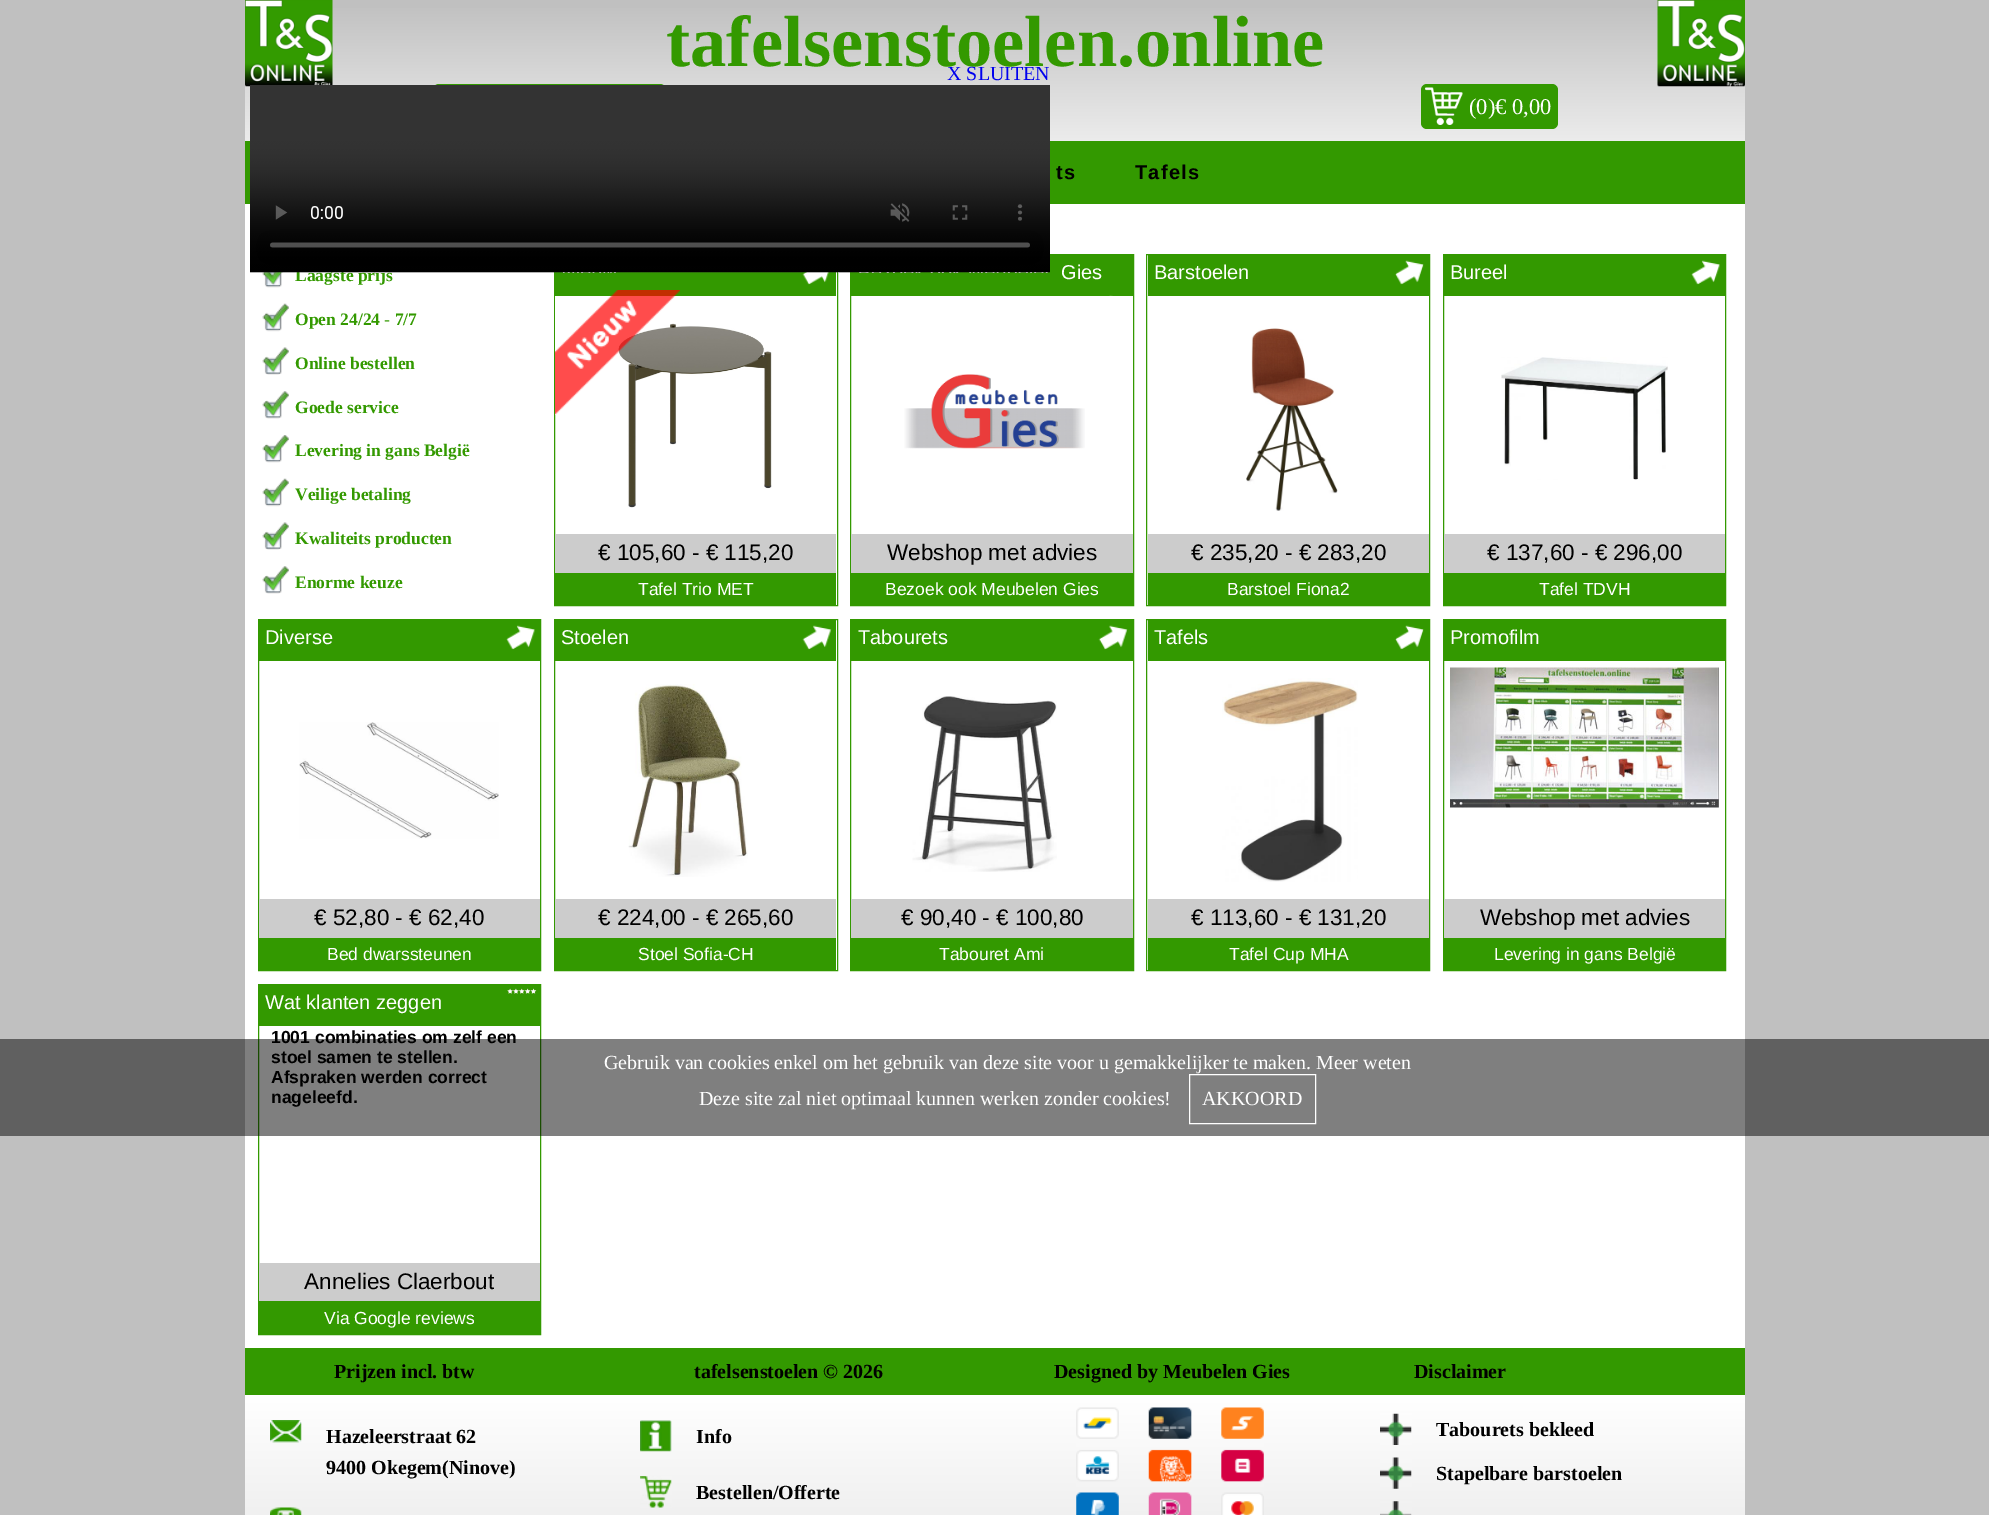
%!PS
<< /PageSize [1989 1515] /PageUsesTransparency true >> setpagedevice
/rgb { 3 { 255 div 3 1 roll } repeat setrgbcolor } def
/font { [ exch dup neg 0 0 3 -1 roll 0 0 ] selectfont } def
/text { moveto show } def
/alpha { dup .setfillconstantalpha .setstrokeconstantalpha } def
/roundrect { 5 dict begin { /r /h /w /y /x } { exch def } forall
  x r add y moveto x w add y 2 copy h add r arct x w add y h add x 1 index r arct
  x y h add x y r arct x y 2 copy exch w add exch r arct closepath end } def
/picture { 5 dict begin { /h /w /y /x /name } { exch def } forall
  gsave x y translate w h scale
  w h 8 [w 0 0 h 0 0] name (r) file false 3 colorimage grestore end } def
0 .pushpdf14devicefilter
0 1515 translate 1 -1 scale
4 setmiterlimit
192 192 192 rgb
0 0 1989 1515 rectfill
255 255 255 rgb
245 204 1500 1144 rectfill
gsave 245 8 moveto 1500 0 rlineto 0 133 rlineto -1500 0 rlineto closepath clip newpath
<< /ShadingType 2 /ColorSpace /DeviceRGB /Coords [995 0 995 204] /Extend [true true] /Function << /FunctionType 2 /Domain [0 1] /C0 [0.753 0.753 0.753] /C1 [1 1 1] /N 1 >> >> shfill grestore
(img_01.rgb) 245 0 88 87 picture
(img_02.rgb) 1657 0 88 87 picture
51 153 0 rgb
433 84 233 45 6 roundrect fill
1421 84 137 45 6 roundrect fill
(img_03.rgb) 1425 87 38 38 picture
245 141 1500 63 rectfill
(img_04.rgb) 262 272 21 16 picture
(img_05.rgb) 262 303 27 29 picture
(img_06.rgb) 262 347 27 28 picture
(img_07.rgb) 262 391 27 28 picture
(img_08.rgb) 262 435 27 28 picture
(img_05.rgb) 262 478 27 29 picture
(img_06.rgb) 262 522 27 28 picture
(img_09.rgb) 262 566 27 28 picture
554.5 254.5 283 351 rectstroke
555 272 281 24 rectfill
(img_10.rgb) 802 272 27 13 picture
(img_11.rgb) 618 323 154 185 picture
(img_12.rgb) 555 290 125 125 picture
204 204 204 rgb
555 534 281 39 rectfill
51 153 0 rgb
555 573 281 32 rectfill
850.5 254.5 283 351 rectstroke
851 255 282 41 rectfill
(img_13.rgb) 1109 295 4 1 picture
(img_14.rgb) 904 374 181 75 picture
204 204 204 rgb
851 534 282 39 rectfill
51 153 0 rgb
851 573 282 32 rectfill
1146.5 254.5 283 351 rectstroke
1148 255 281 41 rectfill
(img_15.rgb) 1395 260 29 25 picture
(img_16.rgb) 1246 328 92 183 picture
204 204 204 rgb
1148 534 281 39 rectfill
51 153 0 rgb
1148 573 281 32 rectfill
1443.5 254.5 282 351 rectstroke
1444 255 281 41 rectfill
(img_17.rgb) 1691 260 29 25 picture
(img_18.rgb) 1501 357 167 123 picture
204 204 204 rgb
1444 534 281 39 rectfill
51 153 0 rgb
1444 573 281 32 rectfill
258.5 619.5 282 351 rectstroke
259 620 281 41 rectfill
(img_17.rgb) 506 625 29 25 picture
(img_19.rgb) 299 722 200 117 picture
204 204 204 rgb
259 899 281 39 rectfill
51 153 0 rgb
259 938 281 32 rectfill
554.5 619.5 283 351 rectstroke
555 620 281 41 rectfill
(img_20.rgb) 802 625 30 25 picture
(img_21.rgb) 628 684 120 193 picture
204 204 204 rgb
555 899 281 39 rectfill
51 153 0 rgb
555 938 281 32 rectfill
850.5 619.5 283 351 rectstroke
851 620 282 41 rectfill
(img_22.rgb) 1098 625 30 25 picture
(img_23.rgb) 912 696 145 176 picture
204 204 204 rgb
851 899 282 39 rectfill
51 153 0 rgb
851 938 282 32 rectfill
1146.5 619.5 283 351 rectstroke
1148 620 281 41 rectfill
(img_15.rgb) 1395 625 29 25 picture
(img_24.rgb) 1222 678 136 204 picture
204 204 204 rgb
1148 899 281 39 rectfill
51 153 0 rgb
1148 938 281 32 rectfill
1443.5 619.5 282 351 rectstroke
1444 620 281 41 rectfill
(img_25.rgb) 1450 667 269 141 picture
204 204 204 rgb
1444 899 281 39 rectfill
51 153 0 rgb
1444 938 281 32 rectfill
258.5 984.5 282 350 rectstroke
259 985 281 41 rectfill
(img_26.rgb) 507 988 30 6 picture
204 204 204 rgb
259 1263 281 38 rectfill
51 153 0 rgb
259 1301 281 33 rectfill
245 1348 1500 47 rectfill
gsave 245 1395 moveto 1500 0 rlineto 0 120 rlineto -1500 0 rlineto closepath clip newpath
<< /ShadingType 2 /ColorSpace /DeviceRGB /Coords [995 1395 995 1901] /Extend [true true] /Function << /FunctionType 2 /Domain [0 1] /C0 [1 1 1] /C1 [0.753 0.753 0.753] /N 1 >> >> shfill grestore
(img_27.rgb) 270 1420 32 23 picture
(img_28.rgb) 270 1507 32 8 picture
(img_29.rgb) 640 1420 32 32 picture
(img_30.rgb) 640 1476 32 32 picture
(img_31.rgb) 1076 1407 188 108 picture
(img_32.rgb) 1380 1413 32 32 picture
(img_33.rgb) 1380 1457 32 32 picture
(img_34.rgb) 1380 1501 32 14 picture
/LiberationSerif-Bold 72.5 font
(tafelsenstoelen.online) 666 66 text
/LiberationSerif-Regular 22.5 font
255 255 255 rgb
(\(0\)€ 0,00) 1469 114 text
/LiberationSans-Bold 20 font
0 0 0 rgb
1056 179 moveto 1.25 0 (ts) ashow
1135 179 moveto 1.25 0 (Tafels) ashow
/LiberationSerif-Bold 17.5 font
51 153 0 rgb
(Laagste prijs) 295 281 text
(Open 24/24 - 7/7) 295 325 text
(Online bestellen) 295 369 text
(Goede service) 295 413 text
(Levering in gans België) 295 456 text
(Veilige betaling) 295 500 text
(Kwaliteits producten) 295 544 text
(Enorme keuze) 295 588 text
/LiberationSans-Regular 22.5 font
0 0 0 rgb
(€ 105,60 - € 115,20) 598 560 text
/LiberationSans-Regular 17.5 font
255 255 255 rgb
(Tafel Trio MET) 638 595 text
/LiberationSans-Regular 20 font
(Gies) 1061 279 text
/LiberationSans-Regular 22.5 font
0 0 0 rgb
(Webshop met advies) 887 560 text
/LiberationSans-Regular 17.5 font
255 255 255 rgb
(Bezoek ook Meubelen Gies) 885 595 text
/LiberationSans-Regular 20 font
(Barstoelen) 1154 279 text
/LiberationSans-Regular 22.5 font
0 0 0 rgb
(€ 235,20 - € 283,20) 1191 560 text
/LiberationSans-Regular 17.5 font
255 255 255 rgb
(Barstoel Fiona2) 1227 595 text
/LiberationSans-Regular 20 font
(Bureel) 1450 279 text
/LiberationSans-Regular 22.5 font
0 0 0 rgb
(€ 137,60 - € 296,00) 1487 560 text
/LiberationSans-Regular 17.5 font
255 255 255 rgb
(Tafel TDVH) 1539 595 text
/LiberationSans-Regular 20 font
(Diverse) 265 644 text
/LiberationSans-Regular 22.5 font
0 0 0 rgb
(€ 52,80 - € 62,40) 314 925 text
/LiberationSans-Regular 17.5 font
255 255 255 rgb
(Bed dwarssteunen) 327 960 text
/LiberationSans-Regular 20 font
(Stoelen) 561 644 text
/LiberationSans-Regular 22.5 font
0 0 0 rgb
(€ 224,00 - € 265,60) 598 925 text
/LiberationSans-Regular 17.5 font
255 255 255 rgb
(Stoel Sofia-CH) 638 960 text
/LiberationSans-Regular 20 font
(Tabourets) 858 644 text
/LiberationSans-Regular 22.5 font
0 0 0 rgb
(€ 90,40 - € 100,80) 901 925 text
/LiberationSans-Regular 17.5 font
255 255 255 rgb
(Tabouret Ami) 939 960 text
/LiberationSans-Regular 20 font
(Tafels) 1154 644 text
/LiberationSans-Regular 22.5 font
0 0 0 rgb
(€ 113,60 - € 131,20) 1191 925 text
/LiberationSans-Regular 17.5 font
255 255 255 rgb
(Tafel Cup MHA) 1229 960 text
/LiberationSans-Regular 20 font
(Promofilm) 1450 644 text
/LiberationSans-Regular 22.5 font
0 0 0 rgb
(Webshop met advies) 1480 925 text
/LiberationSans-Regular 17.5 font
255 255 255 rgb
(Levering in gans België) 1494 960 text
/LiberationSans-Regular 20 font
(Wat klanten zeggen) 265 1009 text
/LiberationSans-Bold 17.5 font
0 0 0 rgb
(1001 combinaties om zelf een) 271 1043 text
(stoel samen te stellen.) 271 1063 text
(Afspraken werden correct) 271 1083 text
(nageleefd.) 271 1103 text
/LiberationSans-Regular 22.5 font
(Annelies Claerbout) 304 1289 text
/LiberationSans-Regular 17.5 font
255 255 255 rgb
(Via Google reviews) 324 1324 text
/LiberationSerif-Bold 20 font
0 0 0 rgb
(Prijzen incl. btw) 334 1378 text
(tafelsenstoelen © 2026) 694 1378 text
(Designed by Meubelen Gies) 1054 1378 text
(Disclaimer) 1414 1378 text
(Hazeleerstraat 62) 326 1443 text
(9400 Okegem\(Ninove\)) 326 1474 text
(Info) 696 1443 text
(Bestellen/Offerte) 696 1499 text
(Tabourets bekleed) 1436 1436 text
(Stapelbare barstoelen) 1436 1480 text
0.5 alpha
0 1039 1989 97 rectfill
/LiberationSerif-Regular 20 font
1 alpha
255 255 255 rgb
(Gebruik van cookies enkel om het gebruik van deze site voor u gemakkelijker te maken. Meer weten) 604 1069 text
(Deze site zal niet optimaal kunnen werken zonder cookies!) 699 1105 text
1189.5 1074.5 126 49 rectstroke
(AKKOORD) 1202 1105 text
0 0 238 rgb
(X SLUITEN) 947 80 text
(img_35.rgb) 250 85 800 188 picture
.poppdf14devicefilter showpage
